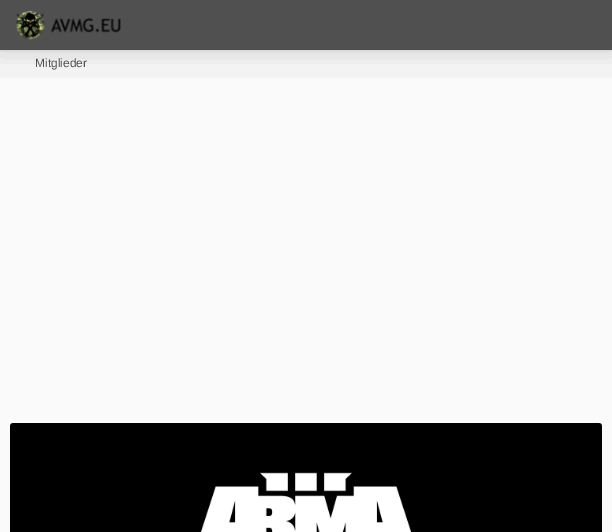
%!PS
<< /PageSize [612 532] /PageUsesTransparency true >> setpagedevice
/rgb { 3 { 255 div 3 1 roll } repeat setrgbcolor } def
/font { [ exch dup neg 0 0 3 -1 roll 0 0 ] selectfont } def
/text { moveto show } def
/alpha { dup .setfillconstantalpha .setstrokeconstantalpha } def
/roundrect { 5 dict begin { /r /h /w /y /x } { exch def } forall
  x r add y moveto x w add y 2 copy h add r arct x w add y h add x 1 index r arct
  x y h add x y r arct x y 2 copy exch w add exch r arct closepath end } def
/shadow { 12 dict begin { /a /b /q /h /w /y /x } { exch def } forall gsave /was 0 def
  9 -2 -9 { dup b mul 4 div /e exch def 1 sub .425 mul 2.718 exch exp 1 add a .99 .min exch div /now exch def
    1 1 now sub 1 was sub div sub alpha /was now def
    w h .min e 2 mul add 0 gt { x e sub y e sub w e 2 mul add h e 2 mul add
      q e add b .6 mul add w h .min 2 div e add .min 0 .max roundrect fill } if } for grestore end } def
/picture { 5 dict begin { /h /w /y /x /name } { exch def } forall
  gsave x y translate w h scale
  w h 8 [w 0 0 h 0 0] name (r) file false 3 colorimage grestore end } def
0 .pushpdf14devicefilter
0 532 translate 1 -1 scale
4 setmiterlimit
80 80 80 rgb
0 0 612 532 rectfill
231 231 231 rgb
0 50 612 1 rectfill
243 243 243 rgb
0 51 612 27 rectfill
250 250 250 rgb
0 78 612 454 rectfill
gsave
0 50 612 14 rectclip
0 0 0 rgb
0 0 612 50 0 12.5 0.15 shadow
grestore
(img_01.rgb) 16 10 105 30 picture
(img_02.rgb) 10 423 592 109 picture
/LiberationSans-Regular 12 font
80 80 80 rgb
(Mitglieder) 35 67 text
.poppdf14devicefilter showpage
